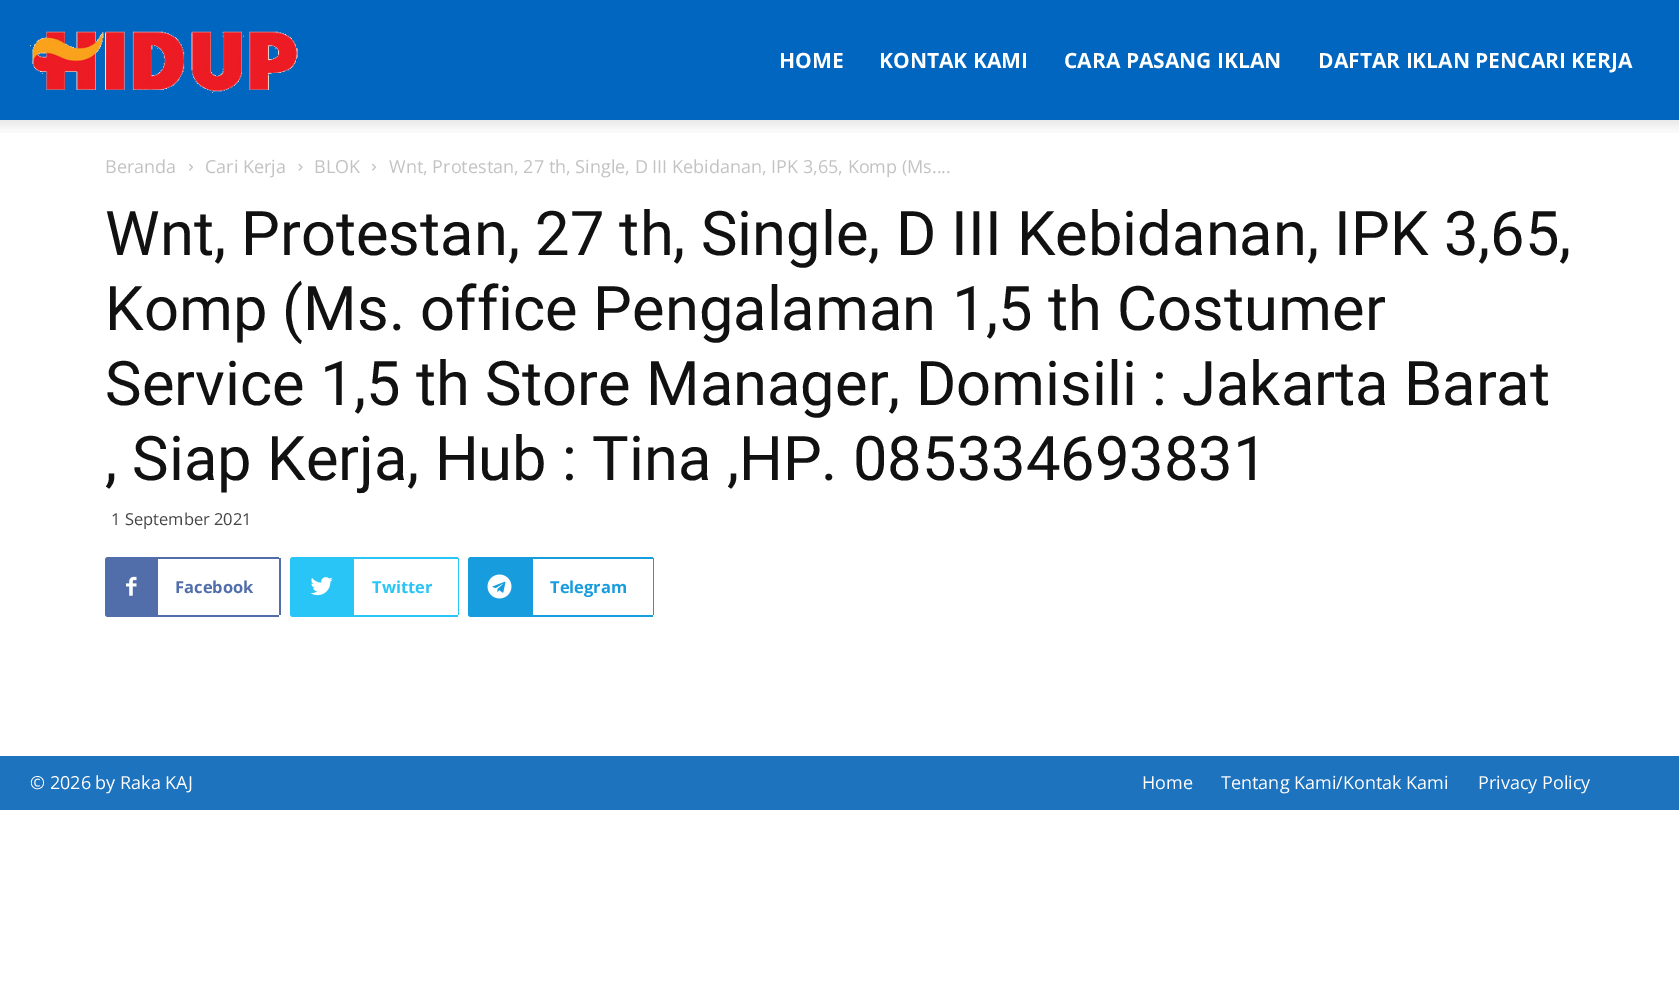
%!PS
<< /PageSize [1679 987] >> setpagedevice
/rgb { 3 { 255 div 3 1 roll } repeat setrgbcolor } def
/font { [ exch dup neg 0 0 3 -1 roll 0 0 ] selectfont } def
/text { moveto show } def
/picture { 5 dict begin { /h /w /y /x /name } { exch def } forall
  gsave x y translate w h scale
  w h 8 [w 0 0 h 0 0] name (r) file false 3 colorimage grestore end } def
0 987 translate 1 -1 scale
4 setmiterlimit
255 255 255 rgb
0 0 1679 987 rectfill
0 102 191 rgb
0 0 1679 120 rectfill
(img_01.rgb) 30 31 268 62 picture
(img_02.rgb) 0 120 1679 13 picture
(img_03.rgb) 189 163 4 8 picture
(img_04.rgb) 298 163 5 8 picture
(img_03.rgb) 372 163 4 8 picture
81 110 171 rgb
108 557 moveto 50 0 rlineto 0 60 rlineto -50 0 rlineto -1.5 0 -3 -1.5 -3 -3 rcurveto 0 -54 rlineto 0 -1.5 1.5 -3 3 -3 rcurveto closepath fill
(img_05.rgb) 126 576 11 20 picture
158 557 121 2 rectfill
279 558 2 57 rectfill
158 615 121 2 rectfill
41 197 246 rgb
293 557 moveto 61 0 rlineto 0 60 rlineto -61 0 rlineto -1.5 0 -3 -1.5 -3 -3 rcurveto 0 -54 rlineto 0 -1.5 1.5 -3 3 -3 rcurveto closepath fill
(img_06.rgb) 310 577 23 19 picture
354 557 104 2 rectfill
458 558 1 57 rectfill
354 615 104 2 rectfill
23 156 222 rgb
471 557 moveto 62 0 rlineto 0 60 rlineto -62 0 rlineto -1.5 0 -3 -1.5 -3 -3 rcurveto 0 -54 rlineto 0 -1.5 1.5 -3 3 -3 rcurveto closepath fill
(img_07.rgb) 487 574 25 25 picture
533 557 120 2 rectfill
653 558 1 57 rectfill
533 615 120 2 rectfill
30 115 190 rgb
0 756 1679 54 rectfill
/OpenSans-Bold 21 font
255 255 255 rgb
(HOME) 779 68 text
(KONTAK KAMI) 879 68 text
(CARA PASANG IKLAN) 1064 68 text
(DAFTAR IKLAN PENCARI KERJA) 1318 68 text
/OpenSans-Regular 18 font
195 195 195 rgb
(Beranda) 105 173 text
(Cari Kerja) 205 173 text
(BLOK) 314 173 text
(Wnt, Protestan, 27 th, Single, D III Kebidanan, IPK 3,65, Komp \(Ms....) 389 173 text
/Roboto-Regular 61.5 font
17 17 17 rgb
(Wnt, Protestan, 27 th, Single, D III Kebidanan, IPK 3,65,) 105 255 text
(Komp \(Ms. office Pengalaman 1,5 th Costumer) 105 330 text
(Service 1,5 th Store Manager, Domisili : Jakarta Barat) 105 405 text
(, Siap Kerja, Hub : Tina ,HP. 085334693831) 105 480 text
/OpenSans-Regular 16.5 font
68 68 68 rgb
(1 September 2021) 111 525 text
/OpenSans-Bold 16.5 font
81 110 171 rgb
(Facebook) 175 593 text
41 197 246 rgb
(Twitter) 372 593 text
23 156 222 rgb
(Telegram) 550 593 text
/OpenSans-Regular 18 font
255 255 255 rgb
(© 2026 by Raka KAJ) 30 789 text
(Home) 1142 789 text
(Tentang Kami/Kontak Kami) 1221 789 text
(Privacy Policy) 1478 789 text
showpage
